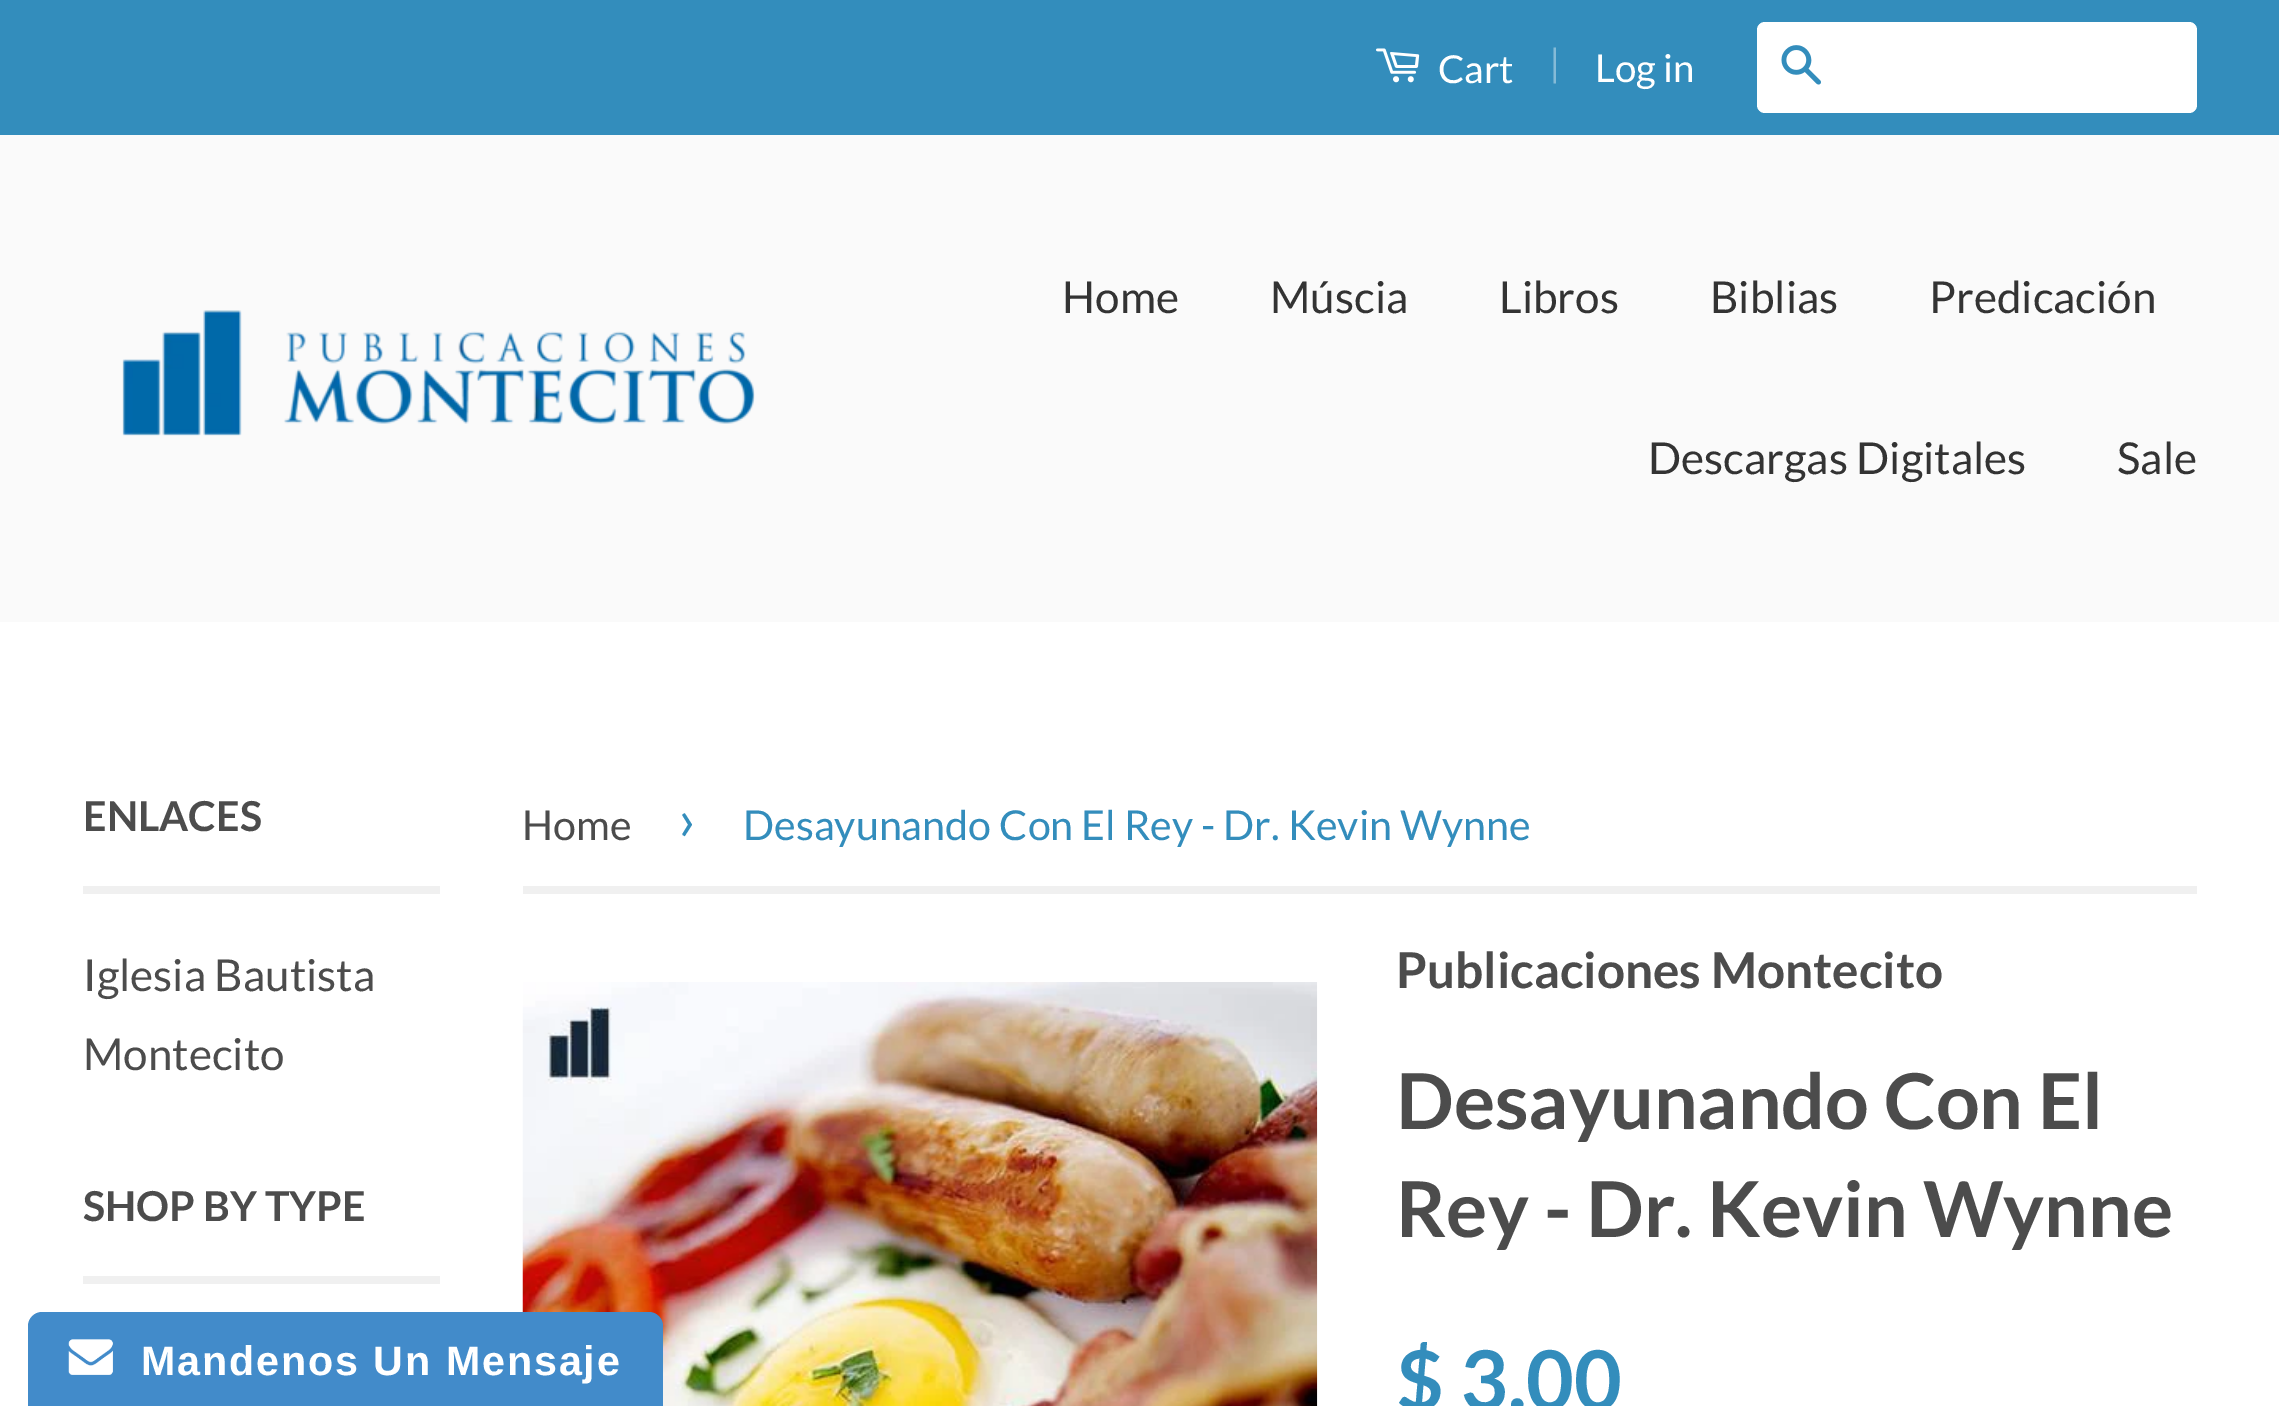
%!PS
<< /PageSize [2279 1406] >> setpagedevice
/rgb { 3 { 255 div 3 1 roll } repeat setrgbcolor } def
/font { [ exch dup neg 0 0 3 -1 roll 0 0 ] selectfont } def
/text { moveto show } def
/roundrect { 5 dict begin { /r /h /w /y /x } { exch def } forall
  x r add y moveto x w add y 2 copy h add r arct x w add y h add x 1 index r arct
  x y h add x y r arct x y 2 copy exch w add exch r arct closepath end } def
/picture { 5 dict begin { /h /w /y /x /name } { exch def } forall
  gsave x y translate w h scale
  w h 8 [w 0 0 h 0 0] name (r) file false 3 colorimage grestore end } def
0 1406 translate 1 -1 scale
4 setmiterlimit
255 255 255 rgb
0 0 2279 1406 rectfill
51 141 188 rgb
0 0 2279 135 rectfill
(img_01.rgb) 1376 48 44 35 picture
255 255 255 rgb
1757 22 440 91 8 roundrect fill
(img_02.rgb) 1781 45 40 40 picture
250 250 250 rgb
0 135 2279 487 rectfill
(img_03.rgb) 122 310 633 126 picture
240 240 240 rgb
83 886 357 8 rectfill
83 1276 357 8 rectfill
523 886 1674 8 rectfill
(img_04.rgb) 522 982 796 424 picture
66 139 202 rgb
42 1312 moveto 607 0 rlineto 7.5 0 14 6.5 14 14 rcurveto 0 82 rlineto -635 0 rlineto 0 -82 rlineto 0 -7.5 6.5 -14 14 -14 rcurveto closepath fill
(img_05.rgb) 68 1339 45 36 picture
/Lato-Regular 38.5 font
255 255 255 rgb
(Cart) 1438 83 text
133 187 215 rgb
(|) 1549 77 text
255 255 255 rgb
(Log in) 1595 82 text
/Lato-Regular 44 font
51 51 51 rgb
(Home) 1062 313 text
(Múscia) 1270 313 text
(Libros) 1499 313 text
(Biblias) 1710 313 text
(Predicación) 1929 313 text
(Descargas Digitales) 1648 474 text
(Sale) 2117 474 text
/Lato-Bold 41.25 font
76 76 76 rgb
(ENLACES) 83 831 text
/Lato-Regular 44 font
(Iglesia Bautista) 83 991 text
(Montecito) 83 1070 text
/Lato-Bold 41.25 font
(SHOP BY TYPE) 83 1221 text
/Lato-Regular 41.25 font
(Home) 522 840 text
/Lato-Regular 58 font
51 141 188 rgb
(›) 678 840 text
/Lato-Regular 41.25 font
(Desayunando Con El Rey - Dr. Kevin Wynne) 743 840 text
/Lato-Bold 49.5 font
76 76 76 rgb
(Publicaciones Montecito) 1396 988 text
/Lato-Bold 77 font
(Desayunando Con El) 1396 1129 text
(Rey - Dr. Kevin Wynne) 1396 1237 text
/Lato-Bold 82.5 font
51 141 188 rgb
($ 3.00) 1396 1410 text
/LiberationSans-Bold 41.25 font
255 255 255 rgb
141 1375 moveto 1.9 0 (Mandenos Un Mensaje) ashow
showpage
